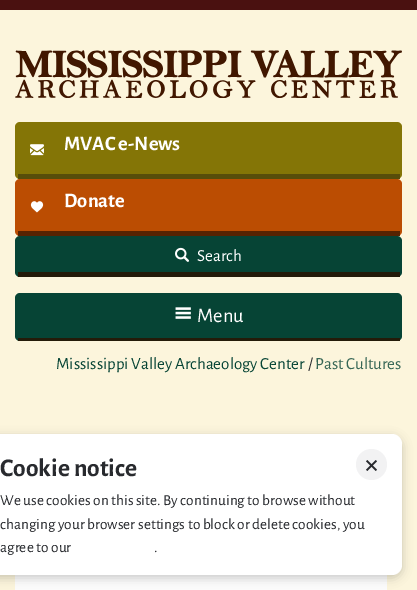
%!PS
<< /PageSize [417 590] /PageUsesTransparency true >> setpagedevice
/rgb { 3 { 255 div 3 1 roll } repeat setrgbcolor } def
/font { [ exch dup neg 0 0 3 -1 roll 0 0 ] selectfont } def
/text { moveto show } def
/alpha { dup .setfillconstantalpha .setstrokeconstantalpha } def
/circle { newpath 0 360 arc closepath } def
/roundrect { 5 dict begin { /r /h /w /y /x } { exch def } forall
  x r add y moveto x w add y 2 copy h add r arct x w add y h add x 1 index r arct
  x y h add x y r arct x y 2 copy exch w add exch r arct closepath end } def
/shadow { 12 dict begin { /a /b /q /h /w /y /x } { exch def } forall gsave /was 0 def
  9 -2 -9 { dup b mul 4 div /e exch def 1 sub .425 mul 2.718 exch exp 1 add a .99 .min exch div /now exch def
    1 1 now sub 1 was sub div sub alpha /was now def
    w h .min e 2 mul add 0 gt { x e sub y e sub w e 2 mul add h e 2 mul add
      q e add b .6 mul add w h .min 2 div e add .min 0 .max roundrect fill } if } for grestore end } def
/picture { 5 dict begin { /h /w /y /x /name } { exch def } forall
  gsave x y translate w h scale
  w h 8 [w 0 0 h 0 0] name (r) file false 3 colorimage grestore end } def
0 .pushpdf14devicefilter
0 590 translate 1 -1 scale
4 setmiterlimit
252 245 220 rgb
0 0 417 590 rectfill
74 17 16 rgb
0 0 417 10 rectfill
(img_01.rgb) 15 50 387 48 picture
132 117 6 rgb
15 122 387 57 5 roundrect fill
87 77 10 rgb
18 174 382 5 rectfill
(img_02.rgb) 30 144 14 12 picture
187 77 2 rgb
15 179 387 57 5 roundrect fill
86 35 1 rgb
18 231 382 5 rectfill
(img_03.rgb) 30 201 14 12 picture
6 68 53 rgb
15 236 387 41 5 roundrect fill
36 27 9 rgb
18 272 382 5 rectfill
(img_04.rgb) 175 247 14 15 picture
6 68 53 rgb
15 293 387 48 5 roundrect fill
36 27 9 rgb
18 338 382 3 rectfill
(img_05.rgb) 175 307 16 12 picture
252 252 252 rgb
15 575 372 15 rectfill
0 0 0 rgb
-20 437 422 141 10 5 0.2 shadow
255 255 255 rgb
-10 434 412 141 10 roundrect fill
242 242 243 rgb
371.5 464.5 15.5 circle fill
(img_06.rgb) 366 460 11 11 picture
/AlegreyaSans-Bold 20.5 font
255 255 255 rgb
(MVAC e-News) 64 150 text
(Donate) 64 207 text
/AlegreyaSans-Regular 17 font
(Search) 197 261 text
/AlegreyaSans-Regular 20.5 font
(Menu) 197 322 text
/AlegreyaSans-Regular 17 font
6 68 53 rgb
(Mississippi Valley Archaeology Center) 56 369 text
40 42 46 rgb
(/) 308 369 text
55 103 86 rgb
(Past Cultures) 315 369 text
/AlegreyaSans-Bold 25.5 font
40 42 46 rgb
(Cookie notice) 0 476 text
/AlegreyaSans-Regular 15.3 font
(We use cookies on this site. By continuing to browse without) 0 505 text
(changing your browser settings to block or delete cookies, you) 0 529 text
(agree to our) 0 552 text
(.) 154 552 text
.poppdf14devicefilter showpage
